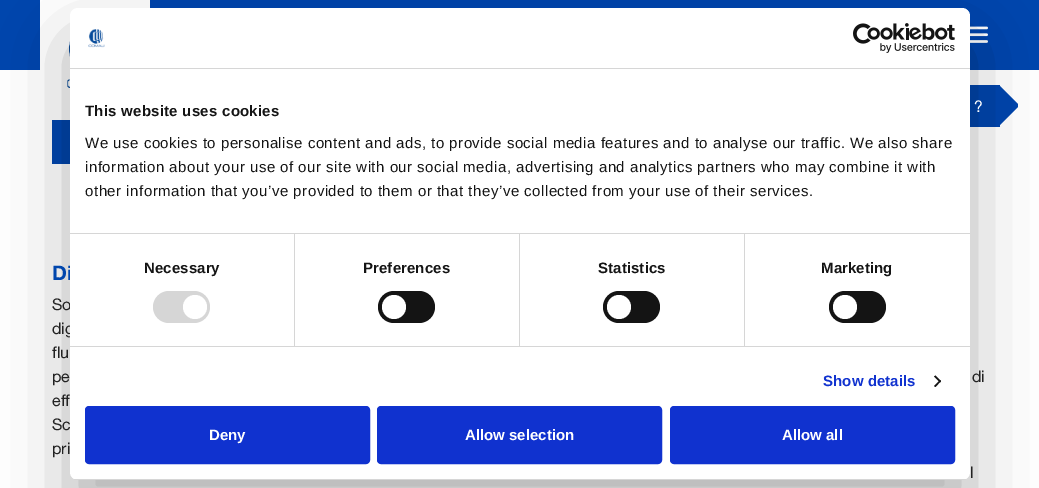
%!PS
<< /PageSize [1039 488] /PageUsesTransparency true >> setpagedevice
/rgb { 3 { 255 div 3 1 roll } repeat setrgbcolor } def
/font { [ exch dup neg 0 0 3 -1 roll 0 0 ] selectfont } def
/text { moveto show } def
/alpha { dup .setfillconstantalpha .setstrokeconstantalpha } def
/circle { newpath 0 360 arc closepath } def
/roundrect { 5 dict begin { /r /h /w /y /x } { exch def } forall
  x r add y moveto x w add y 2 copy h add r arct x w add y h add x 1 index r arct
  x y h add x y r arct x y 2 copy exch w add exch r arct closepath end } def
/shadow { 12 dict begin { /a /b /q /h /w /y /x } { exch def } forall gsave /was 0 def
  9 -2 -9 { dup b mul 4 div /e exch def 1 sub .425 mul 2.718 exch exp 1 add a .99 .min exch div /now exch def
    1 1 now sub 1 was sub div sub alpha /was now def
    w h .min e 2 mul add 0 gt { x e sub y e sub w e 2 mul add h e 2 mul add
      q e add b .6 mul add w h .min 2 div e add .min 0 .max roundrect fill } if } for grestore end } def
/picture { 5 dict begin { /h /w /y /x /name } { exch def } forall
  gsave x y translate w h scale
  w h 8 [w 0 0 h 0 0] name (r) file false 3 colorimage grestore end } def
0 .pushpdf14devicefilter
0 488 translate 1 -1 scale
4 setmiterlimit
255 255 255 rgb
0 0 1039 488 rectfill
0 70 173 rgb
0 0 1039 70 rectfill
255 255 255 rgb
40 0 110 70 rectfill
(img_01.rgb) 67 41 3 47 picture
(img_02.rgb) 970 26 18 17 picture
0 70 173 rgb
970 85 30 42 rectfill
999 126 moveto 0 -41 rlineto 19 19 rlineto 0 3 rlineto closepath fill
52 120 18 44 rectfill
0 0 0 rgb
70 40 900 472 8 34 0.3 shadow
/HelveticaNeue-Regular 16 font
255 255 255 rgb
(?) 974 112 text
/HelveticaNeue-Bold 20 font
0 70 173 rgb
(Di) 52 280 text
/HelveticaNeue-Regular 16 font
34 34 34 rgb
(So) 52 310 text
(dig) 52 334 text
(flu) 52 358 text
(pe) 52 382 text
(eff) 52 406 text
(Sc) 52 430 text
(pri) 52 454 text
(di) 972 382 text
(l) 970 478 text
255 255 255 rgb
70 8 900 472 8 roundrect fill
214 214 214 rgb
70 68 900 1 rectfill
(img_03.rgb) 88 29 17 19 picture
(img_04.rgb) 853 23 102 30 picture
70 233 900 1 rectfill
/LiberationSans-Bold 15 font
20 20 20 rgb
85 116 moveto 0.25 0 (This website uses cookies) ashow
/LiberationSans-Regular 15 font
85 148 moveto 0.5 0 (We use cookies to personalise content and ads, to provide social media features and to analyse our traffic. We also share) ashow
85 172 moveto 0.5 0 (information about your use of our site with our social media, advertising and analytics partners who may combine it with) ashow
85 196 moveto 0.5 0 (other information that you’ve provided to them or that they’ve collected from your use of their services.) ashow
214 214 214 rgb
70 346 900 1 rectfill
294 234 1 112 rectfill
/LiberationSans-Bold 15 font
20 20 20 rgb
144 273 moveto 0.1 0 (Necessary) ashow
214 214 214 rgb
153 291 57 32 16 roundrect fill
255 255 255 rgb
195 307 12 circle fill
214 214 214 rgb
519 234 1 112 rectfill
20 20 20 rgb
363 273 moveto 0.1 0 (Preferences) ashow
378 291 57 32 16 roundrect fill
255 255 255 rgb
394 307 12 circle fill
214 214 214 rgb
744 234 1 112 rectfill
20 20 20 rgb
598 273 moveto 0.1 0 (Statistics) ashow
603 291 57 32 16 roundrect fill
255 255 255 rgb
619 307 12 circle fill
20 20 20 rgb
821 273 moveto 0.1 0 (Marketing) ashow
829 291 57 32 16 roundrect fill
255 255 255 rgb
845 307 12 circle fill
16 50 207 rgb
823 386 moveto 0.1 0 (Show details) ashow
20 20 20 rgb
935.5 375.5 moveto 5.5 5.5 rlineto -1 1.5 rlineto -6 -6 rlineto closepath fill
940 380 moveto 1 1 rlineto -5.5 6 rlineto -1.5 -1 rlineto closepath fill
gsave
70 8 900 472 8 roundrect clip newpath
214 214 214 rgb
70 479 900 1 rectfill
grestore
16 50 207 rgb
86 407 283 56 3 roundrect gsave fill grestore
2 setlinewidth
stroke
255 255 255 rgb
(Deny) 209 440 text
16 50 207 rgb
378 407 283 56 3 roundrect gsave fill grestore
stroke
255 255 255 rgb
(Allow selection) 465 440 text
16 50 207 rgb
671 407 283 56 3 roundrect gsave fill grestore
stroke
255 255 255 rgb
(Allow all) 782 440 text
.poppdf14devicefilter showpage
